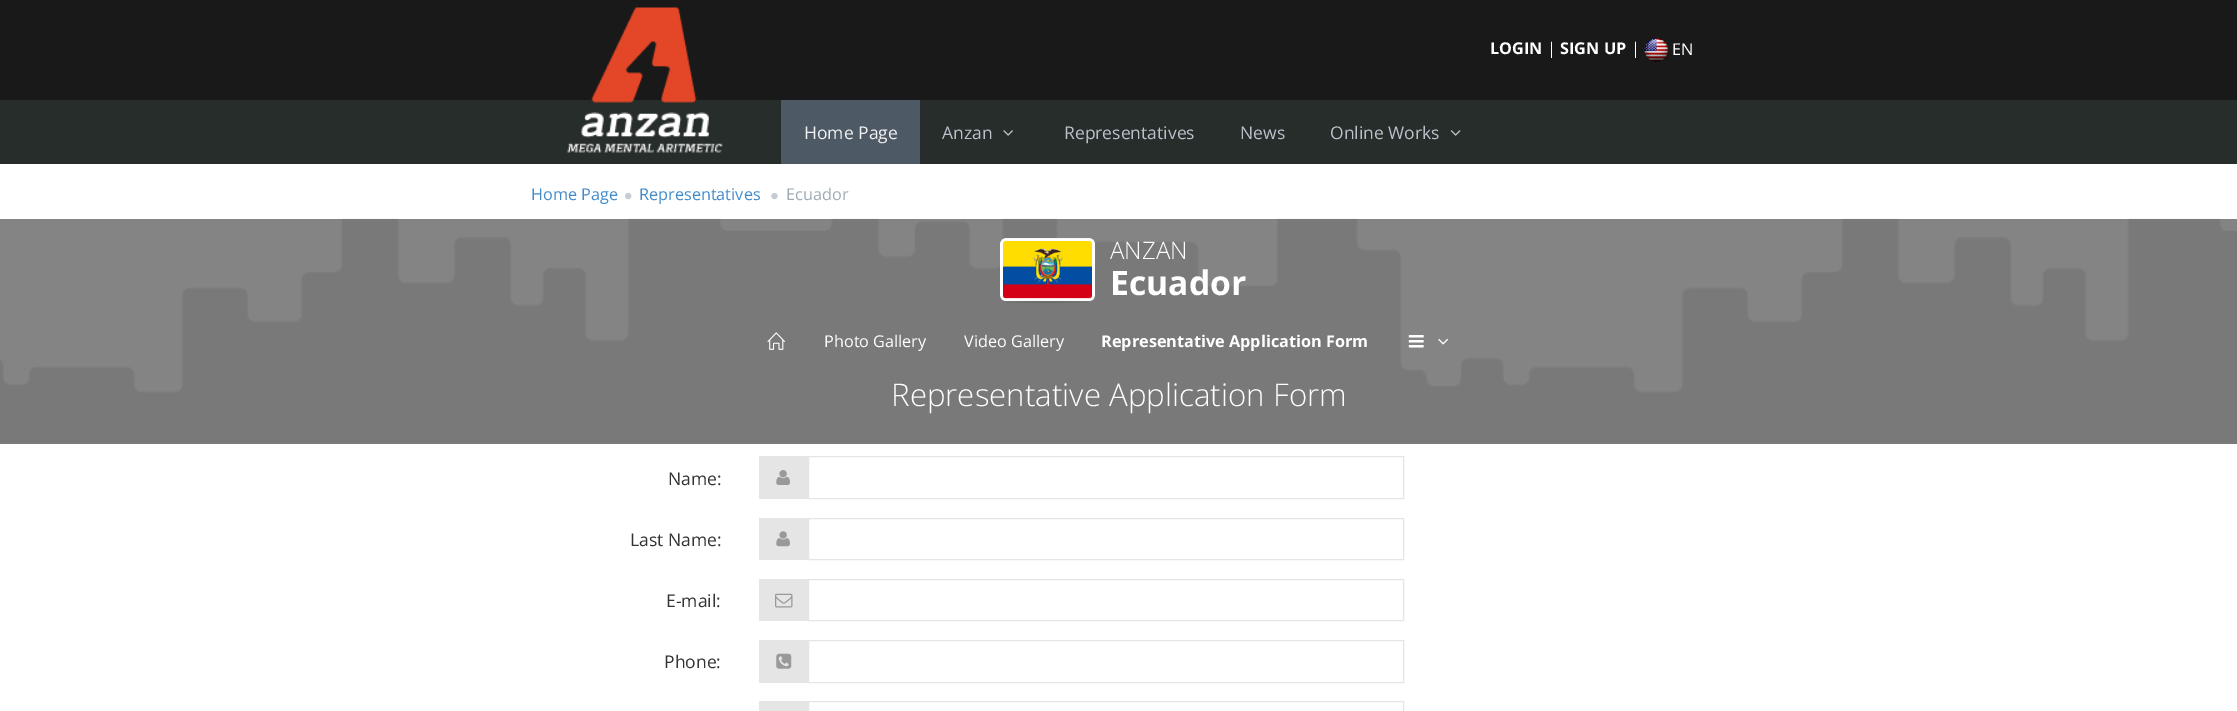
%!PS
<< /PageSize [2237 711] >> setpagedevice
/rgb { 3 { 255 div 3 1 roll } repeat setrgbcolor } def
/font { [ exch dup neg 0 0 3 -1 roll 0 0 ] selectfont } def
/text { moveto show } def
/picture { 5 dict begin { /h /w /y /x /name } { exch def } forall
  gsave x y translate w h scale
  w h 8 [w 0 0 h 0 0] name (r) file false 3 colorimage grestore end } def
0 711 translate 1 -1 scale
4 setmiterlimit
255 255 255 rgb
0 0 2237 711 rectfill
25 25 25 rgb
0 0 2237 100 rectfill
39 45 42 rgb
0 100 2237 64 rectfill
(img_01.rgb) 567 7 156 146 picture
(img_02.rgb) 1644 38 24 24 picture
78 89 102 rgb
781 100 139 64 rectfill
(img_03.rgb) 1003 130 10 6 picture
(img_04.rgb) 1450 130 11 6 picture
(img_05.rgb) 625 192 7 8 picture
(img_06.rgb) 771 192 7 8 picture
132 132 132 rgb
0 219 2237 225 rectfill
(img_07.rgb) 0 218 2237 226 picture
(img_08.rgb) 1000 238 95 66 picture
(img_09.rgb) 767 332 18 18 picture
(img_10.rgb) 1408 335 16 13 picture
(img_11.rgb) 1438 338 10 7 picture
229 229 229 rgb
759 456 49 43 rectfill
(img_12.rgb) 776 470 14 15 picture
808.5 456.5 595 42 rectstroke
759 518 49 42 rectfill
(img_13.rgb) 776 531 14 16 picture
808.5 518.5 595 41 rectstroke
759 579 49 42 rectfill
(img_14.rgb) 775 593 18 15 picture
808.5 579.5 595 41 rectstroke
759 640 49 43 rectfill
(img_15.rgb) 776 653 16 16 picture
808.5 640.5 595 42 rectstroke
759 701 49 10 rectfill
808.5 701.5 595 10 rectstroke
/OpenSans-Bold 16.25 font
255 255 255 rgb
(LOGIN) 1490 54 text
/OpenSans-Regular 16.25 font
(|) 1547 54 text
/OpenSans-Bold 16.25 font
(SIGN UP) 1560 54 text
/OpenSans-Regular 16.25 font
(|) 1631 54 text
(EN) 1672 55 text
/OpenSans-Regular 17.5 font
241 241 241 rgb
(Home Page) 804 139 text
188 194 203 rgb
(Anzan) 942 139 text
(Representatives) 1064 139 text
(News) 1240 139 text
(Online Works) 1330 139 text
/OpenSans-Regular 16.25 font
66 139 202 rgb
(Home Page) 531 200 text
(Representatives) 639 200 text
158 172 180 rgb
(Ecuador) 786 200 text
/OpenSans-Light 24 font
255 255 255 rgb
(ANZAN) 1110 259 text
/OpenSans-Bold 33.75 font
(Ecuador) 1110 295 text
/OpenSans-Regular 16.25 font
(Photo Gallery) 824 347 text
(Video Gallery) 964 347 text
/OpenSans-Bold 16.25 font
(Representative Application Form) 1101 347 text
/OpenSans-Light 31.25 font
(Representative Application Form) 891 406 text
/OpenSans-Regular 17.5 font
51 51 51 rgb
(Name:) 668 485 text
(Last Name:) 630 546 text
(E-mail:) 666 607 text
(Phone:) 664 668 text
showpage
